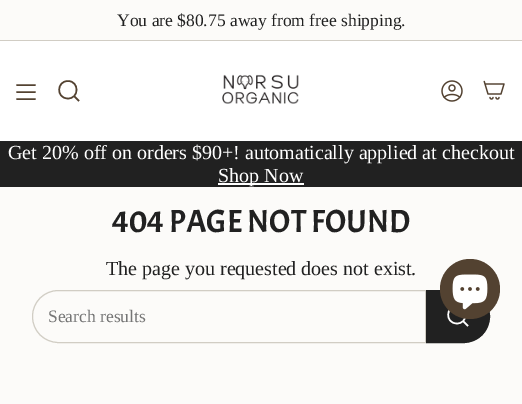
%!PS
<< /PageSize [522 404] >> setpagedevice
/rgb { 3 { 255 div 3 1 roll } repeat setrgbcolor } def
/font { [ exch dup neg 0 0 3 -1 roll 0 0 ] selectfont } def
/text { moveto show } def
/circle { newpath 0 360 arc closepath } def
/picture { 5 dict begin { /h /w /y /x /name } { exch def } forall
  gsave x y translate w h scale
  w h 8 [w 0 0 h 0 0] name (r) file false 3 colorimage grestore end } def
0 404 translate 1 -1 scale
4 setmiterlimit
255 255 255 rgb
0 0 522 404 rectfill
252 251 249 rgb
0 0 522 40 rectfill
209 205 196 rgb
0 40 522 1 rectfill
83 66 49 rgb
1.5 setlinewidth
1 setlinecap
1 setlinejoin
17 85 moveto 18 0 rlineto 17 92 moveto 18 0 rlineto 17 99 moveto 18 0 rlineto stroke
0 setlinecap
0 setlinejoin
68 81 moveto 11.5 0 11.5 18 -0.5 17.5 rcurveto -11.5 -0.5 -11 -17.5 0.5 -17.5 rcurveto closepath 74 96 moveto 5 5 rlineto stroke
(img_01.rgb) 222 74 77 30 picture
(img_02.rgb) 441 80 22 22 picture
(img_03.rgb) 483 80 22 20 picture
34 35 36 rgb
0 141 522 1 rectfill
33 33 33 rgb
0 142 522 45 rectfill
255 255 255 rgb
218 183 86 2 rectfill
252 251 249 rgb
0 187 522 217 rectfill
209 205 196 rgb
1 setlinewidth
58.5 290.5 moveto 367 0 rlineto 0 52 rlineto -367 0 rlineto -14.5 0 -26 -11.5 -26 -26 rcurveto 0 -14.5 11.5 -26 26 -26 rcurveto closepath stroke
33 33 33 rgb
426.5 290.5 moveto 37 0 rlineto 14.5 0 26 11.5 26 26 rcurveto 0 14.5 -11.5 26 -26 26 rcurveto -37 0 rlineto closepath gsave fill grestore
stroke
255 255 255 rgb
1.5 setlinewidth
457 306 moveto 11.5 0 11.5 18 -0.5 17.5 rcurveto -11.5 -0.5 -11 -17.5 0.5 -17.5 rcurveto closepath 463 321 moveto 5 5 rlineto stroke
83 66 49 rgb
470 289 30 circle fill
(img_04.rgb) 452 274 36 36 picture
/LiberationSerif-Regular 17.5 font
33 33 33 rgb
(You are $80.75 away from free shipping.) 117 26 text
/LiberationSerif-Regular 20 font
255 255 255 rgb
(Get 20% off on orders $90+! automatically applied at checkout) 8 159 text
(Shop Now) 218 182 text
/Acme-Regular 32 font
33 33 33 rgb
(404 PAGE NOT FOUND) 112 232 text
/LiberationSerif-Regular 20 font
(The page you requested does not exist.) 106 275 text
/LiberationSerif-Regular 17.5 font
117 117 117 rgb
(Search results) 48 322 text
showpage
